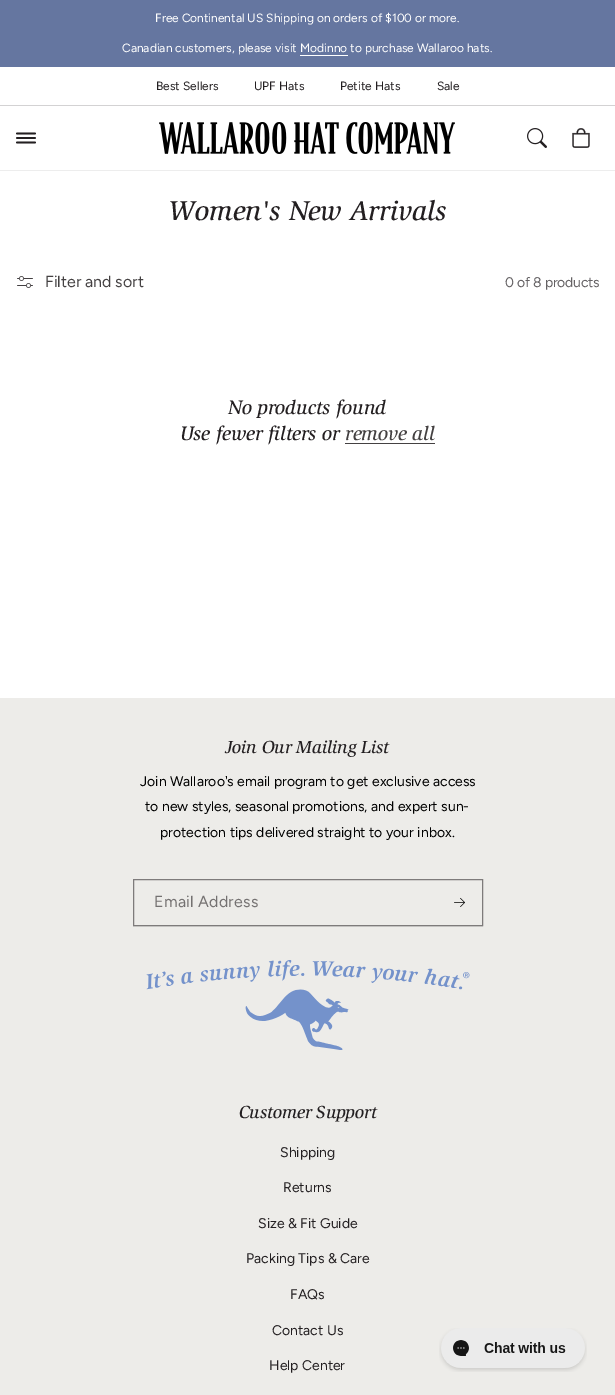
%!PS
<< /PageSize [615 1395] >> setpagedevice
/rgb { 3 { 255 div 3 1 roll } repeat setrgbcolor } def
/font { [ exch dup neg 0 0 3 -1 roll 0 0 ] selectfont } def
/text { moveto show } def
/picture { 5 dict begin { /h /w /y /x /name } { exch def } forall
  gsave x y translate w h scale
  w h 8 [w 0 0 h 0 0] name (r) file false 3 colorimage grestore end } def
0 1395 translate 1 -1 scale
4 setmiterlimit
255 255 255 rgb
0 0 615 1395 rectfill
101 118 160 rgb
0 0 615 67 rectfill
255 255 255 rgb
300 55 48 1 rectfill
211 210 211 rgb
0 105 615 1 rectfill
237 237 237 rgb
0 170 615 1 rectfill
35 31 33 rgb
1.7 setlinewidth
1 setlinecap
17 133.5 moveto 18 0 rlineto 17 138 moveto 18 0 rlineto 17 142.5 moveto 18 0 rlineto stroke
(img_01.rgb) 159 122 296 32 picture
(img_02.rgb) 527 128 20 20 picture
(img_03.rgb) 572 128 18 20 picture
(img_04.rgb) 17 276 16 12 picture
68 65 66 rgb
345 443 90 1 rectfill
237 236 233 rgb
0 698 615 697 rectfill
221 220 217 rgb
133 926 350 1 rectfill
126 123 123 rgb
1 setlinewidth
0 setlinecap
133.5 879.5 349 46 rectstroke
(img_05.rgb) 454 897 11 10 picture
(img_06.rgb) 146 960 324 90 picture
(img_07.rgb) 439 1328 148 44 picture
/Figtree-Regular 12 font
255 255 255 rgb
(Free Continental US Shipping on orders of $100 or more.) 155 22 text
(Canadian customers, please visit Modinno to purchase Wallaroo hats.) 122 52 text
35 31 33 rgb
(Best Sellers) 156 90 text
(UPF Hats) 254 90 text
(Petite Hats) 340 90 text
(Sale) 437 90 text
/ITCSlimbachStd-MediumItalic 28 font
168 220 moveto -0.2 0 (Women's New Arrivals) ashow
/Figtree-Regular 16 font
68 65 66 rgb
(Filter and sort) 45 287 text
/Figtree-Regular 14 font
101 98 100 rgb
505 287 moveto -0.2 0 (0 of 8 products) ashow
/ITCSlimbachStd-MediumItalic 20 font
35 31 33 rgb
228 414 moveto -0.2 0 (No products found) ashow
180 440 moveto -0.2 0 (Use fewer filters or) ashow
68 65 66 rgb
345 440 moveto -0.2 0 (remove all) ashow
/ITCSlimbachStd-MediumItalic 18 font
35 31 33 rgb
225 753 moveto -0.2 0 (Join Our Mailing List) ashow
/Figtree-Regular 14 font
0 0 0 rgb
(Join Wallaroo's email program to get exclusive access) 140 786 text
(to new styles, seasonal promotions, and expert sun-) 145 811 text
(protection tips delivered straight to your inbox.) 160 837 text
/Figtree-Regular 16 font
116 113 113 rgb
154 907 moveto 0.25 0 (Email Address) ashow
/ITCSlimbachStd-MediumItalic 18 font
35 31 33 rgb
239 1118 moveto -0.2 0 (Customer Support) ashow
/Figtree-Regular 14 font
(Shipping) 280 1157 text
(Returns) 283 1192 text
(Size & Fit Guide) 258 1228 text
(Packing Tips & Care) 246 1263 text
(FAQs) 290 1299 text
(Contact Us) 272 1335 text
(Help Center) 269 1370 text
showpage
